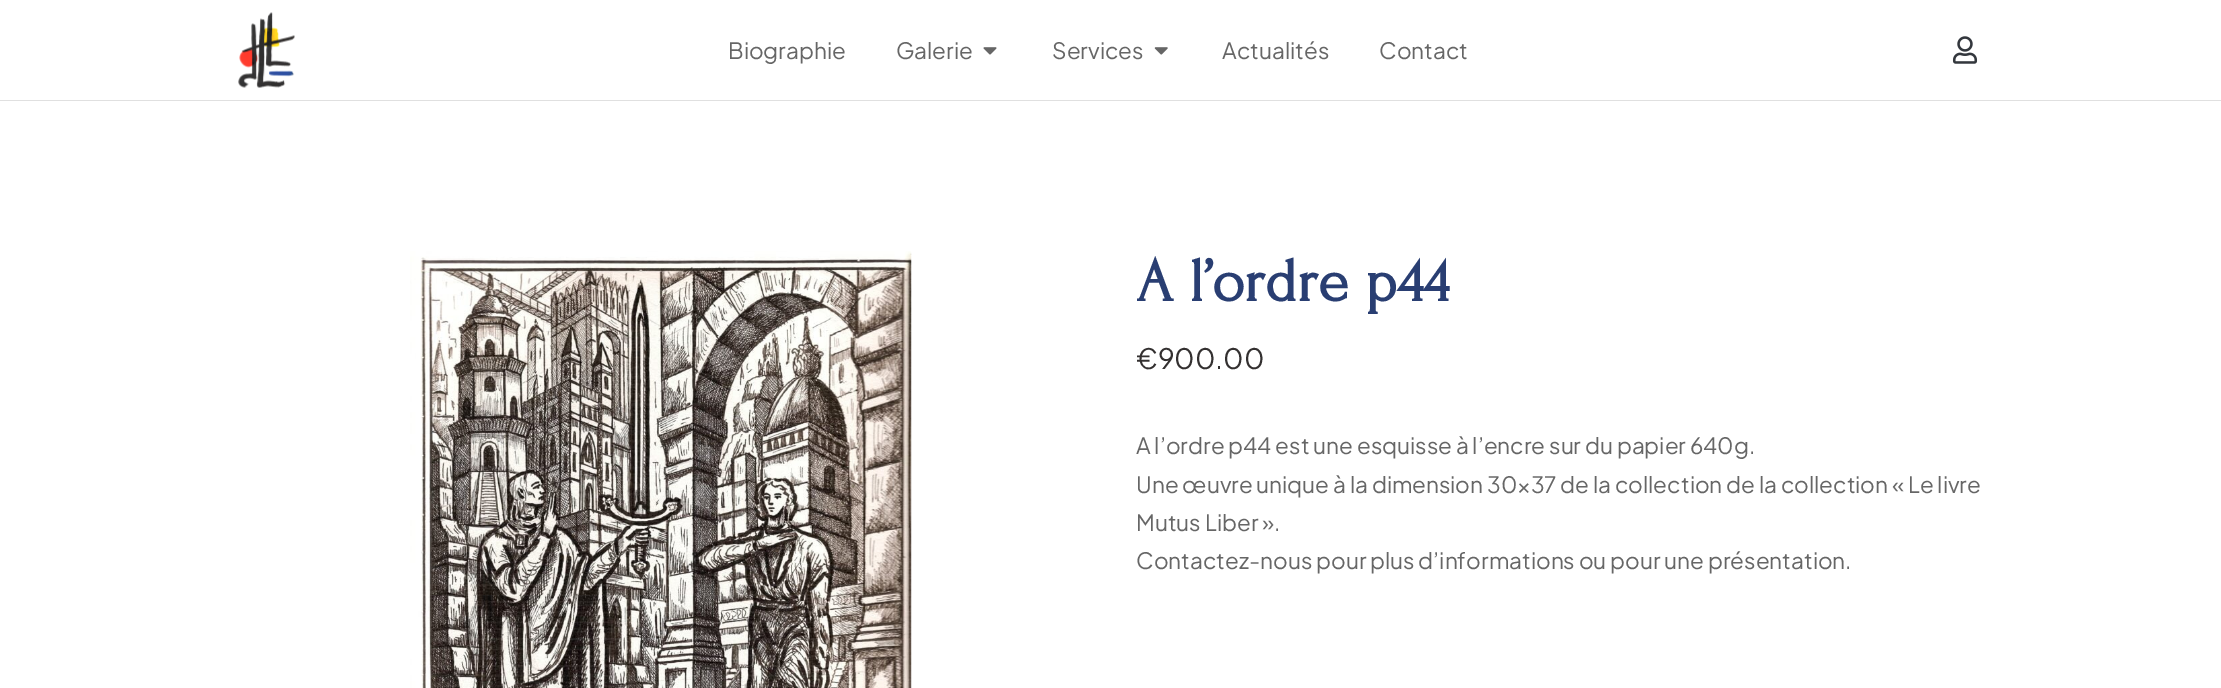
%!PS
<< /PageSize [2221 688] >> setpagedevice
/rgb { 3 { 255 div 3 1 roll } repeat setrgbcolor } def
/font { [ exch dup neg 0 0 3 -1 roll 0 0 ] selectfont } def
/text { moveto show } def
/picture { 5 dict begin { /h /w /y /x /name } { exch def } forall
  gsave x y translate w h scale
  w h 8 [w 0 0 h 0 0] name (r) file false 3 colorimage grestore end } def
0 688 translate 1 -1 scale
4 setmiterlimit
255 255 255 rgb
0 0 2221 688 rectfill
224 224 224 rgb
0 100 2221 1 rectfill
(img_01.rgb) 238 12 57 76 picture
(img_02.rgb) 983 47 14 8 picture
(img_03.rgb) 1154 47 14 8 picture
(img_04.rgb) 1952 36 26 28 picture
(img_05.rgb) 410 251 502 437 picture
/PlusJakartaSans-Regular 22.5 font
102 102 102 rgb
(Biographie) 728 59 text
(Galerie) 896 59 text
(Services) 1052 59 text
(Actualités) 1222 59 text
(Contact) 1379 59 text
/Forum-Bold 62.5 font
41 62 114 rgb
(A l’ordre p44) 1136 301 text
/PlusJakartaSans-Regular 28 font
51 48 48 rgb
(€900.00) 1136 369 text
/PlusJakartaSans-Regular 22.5 font
102 102 102 rgb
(A l’ordre p44 est une esquisse à l’encre sur du papier 640g.) 1136 454 text
(Une œuvre unique à la dimension 30×37 de la collection de la collection « Le livre) 1136 493 text
(Mutus Liber ».) 1136 531 text
(Contactez-nous pour plus d’informations ou pour une présentation.) 1136 569 text
showpage
